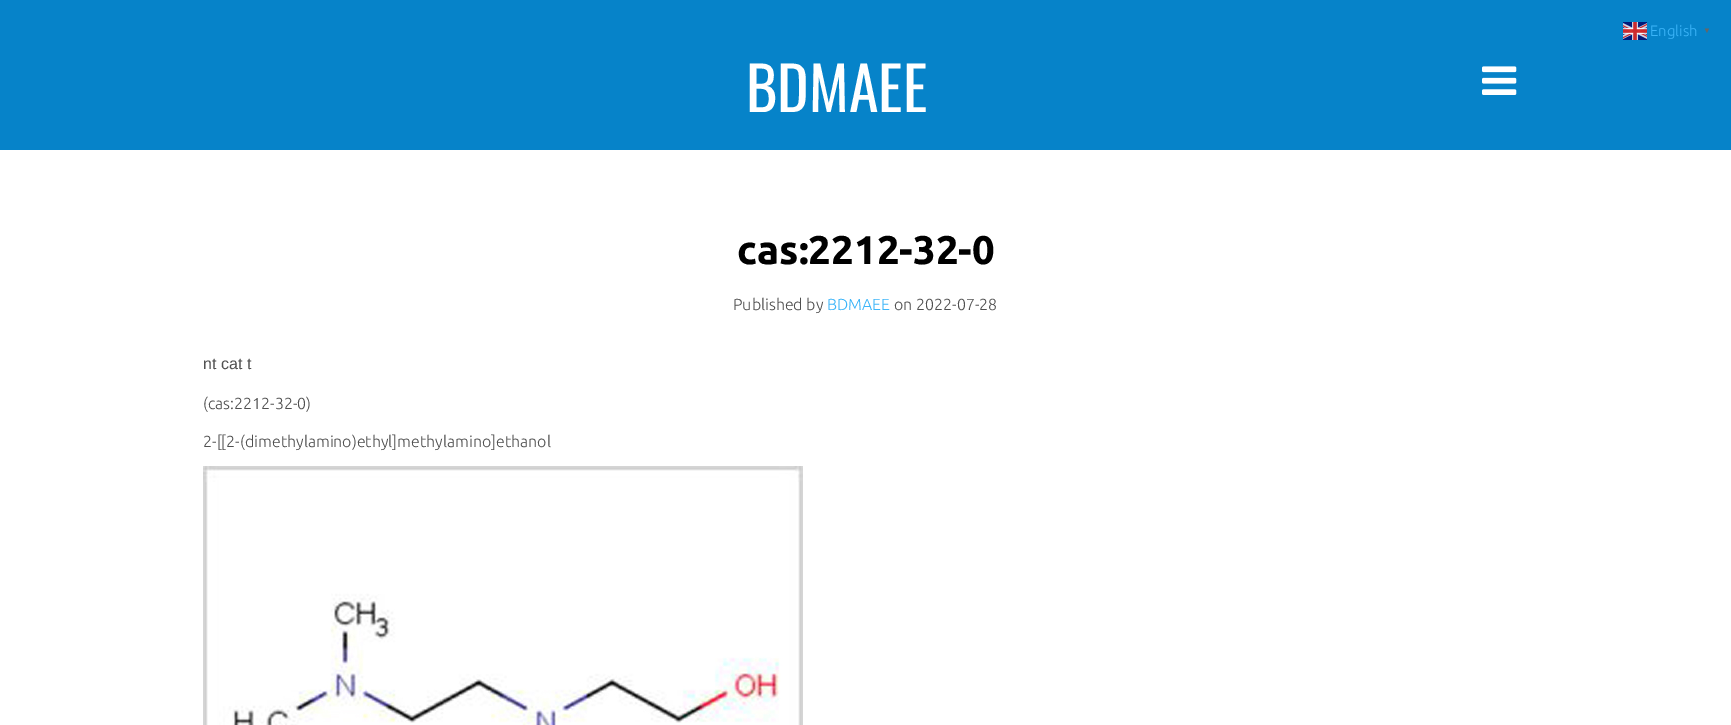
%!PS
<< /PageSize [1731 725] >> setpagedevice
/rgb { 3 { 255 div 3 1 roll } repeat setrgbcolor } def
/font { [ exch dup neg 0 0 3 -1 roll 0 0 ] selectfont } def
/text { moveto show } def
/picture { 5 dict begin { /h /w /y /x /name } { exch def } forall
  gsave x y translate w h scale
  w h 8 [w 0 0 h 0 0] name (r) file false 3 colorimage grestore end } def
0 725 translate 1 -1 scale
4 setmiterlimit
255 255 255 rgb
0 0 1731 725 rectfill
6 131 201 rgb
0 0 1731 150 rectfill
(img_01.rgb) 1623 22 24 18 picture
(img_02.rgb) 1482 66 35 29 picture
(img_03.rgb) 203 466 600 259 picture
/Ubuntu-Light 15 font
60 181 249 rgb
(English) 1650 36 text
/LiberationSans-Bold 8 font
102 102 102 rgb
(▼) 1703 33 text
/Oswald-Regular 60 font
255 255 255 rgb
(BDMAEE) 746 112 text
/Ubuntu-Bold 40 font
0 0 0 rgb
(cas:2212-32-0) 737 264 text
/Ubuntu-Light 16 font
80 80 80 rgb
(Published by) 733 310 text
60 181 249 rgb
(BDMAEE) 827 310 text
80 80 80 rgb
(on 2022-07-28) 894 310 text
/LiberationSans-Regular 16 font
(nt cat t) 203 369 text
/Ubuntu-Light 16 font
(\(cas:2212-32-0\)) 203 409 text
(2-[[2-\(dimethylamino\)ethyl]methylamino]ethanol) 203 447 text
showpage
